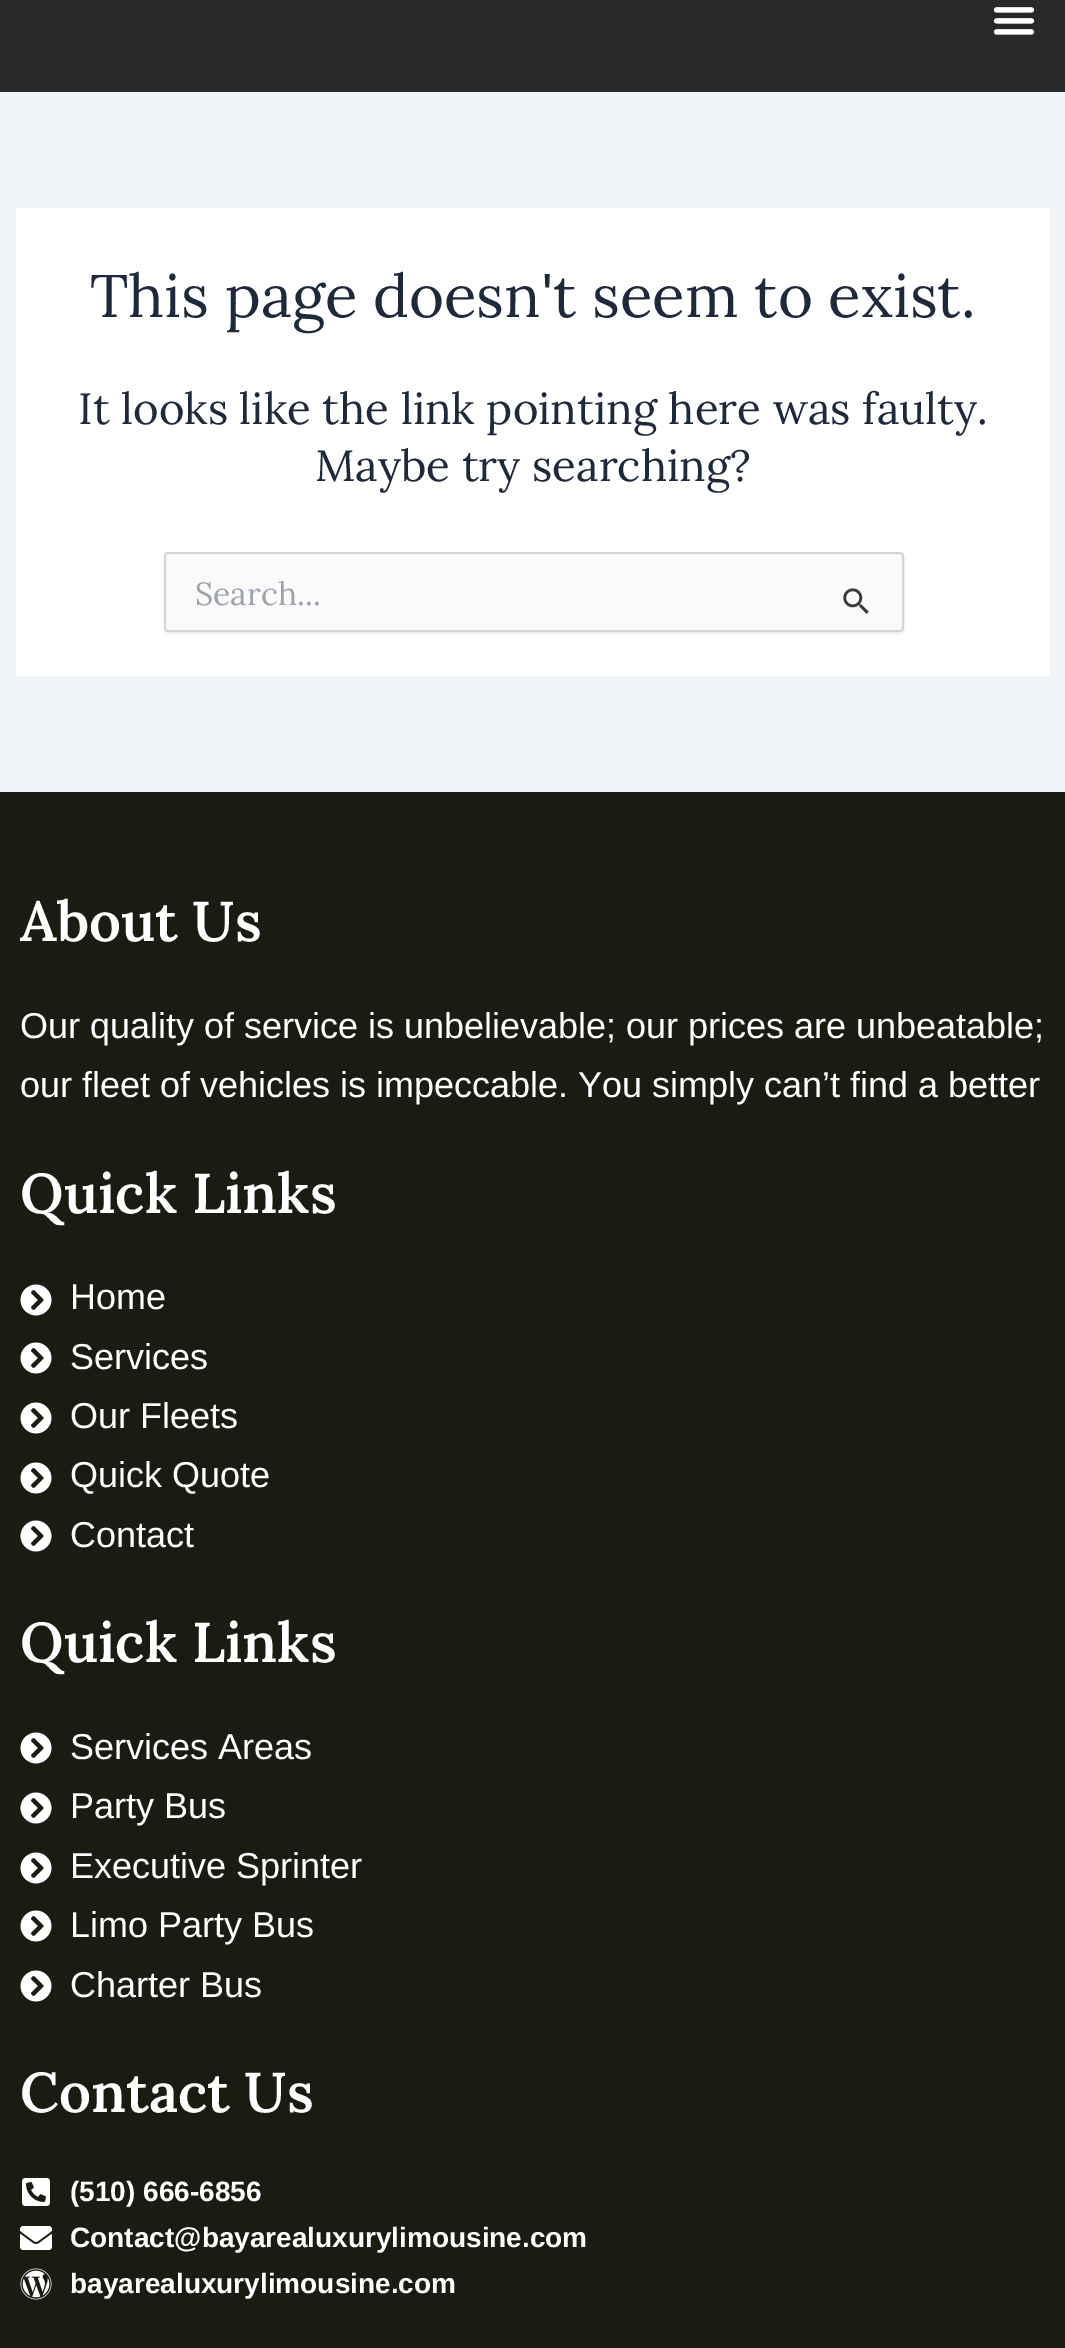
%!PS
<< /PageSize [1065 2348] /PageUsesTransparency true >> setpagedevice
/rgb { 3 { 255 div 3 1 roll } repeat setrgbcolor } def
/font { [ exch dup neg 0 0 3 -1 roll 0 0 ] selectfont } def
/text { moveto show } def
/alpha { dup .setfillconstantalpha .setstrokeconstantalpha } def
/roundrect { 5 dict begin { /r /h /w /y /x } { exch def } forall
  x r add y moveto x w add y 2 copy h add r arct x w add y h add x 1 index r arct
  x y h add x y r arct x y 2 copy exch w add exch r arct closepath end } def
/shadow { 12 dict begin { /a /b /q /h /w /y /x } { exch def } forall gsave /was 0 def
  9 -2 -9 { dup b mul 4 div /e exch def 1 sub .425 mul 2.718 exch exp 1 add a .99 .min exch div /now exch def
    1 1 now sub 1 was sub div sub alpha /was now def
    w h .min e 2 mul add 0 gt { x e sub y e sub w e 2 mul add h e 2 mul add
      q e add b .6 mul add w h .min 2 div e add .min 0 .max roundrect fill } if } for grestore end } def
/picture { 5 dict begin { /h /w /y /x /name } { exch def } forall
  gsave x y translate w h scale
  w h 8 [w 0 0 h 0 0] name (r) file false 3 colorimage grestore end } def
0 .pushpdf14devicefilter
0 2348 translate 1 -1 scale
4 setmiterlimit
240 245 250 rgb
0 0 1065 2348 rectfill
41 41 41 rgb
0 0 1065 92 rectfill
(img_01.rgb) 993 7 42 28 picture
255 255 255 rgb
16 208 1034 468 rectfill
0 0 0 rgb
164 554 740 80 4 2 0.05 shadow
250 250 250 rgb
165 553 738 78 3 roundrect gsave fill grestore
209 213 219 rgb
2 setlinewidth
stroke
(img_02.rgb) 843 588 26 26 picture
26 28 18 rgb
0 792 1065 1556 rectfill
(img_03.rgb) 20 1284 32 32 picture
(img_03.rgb) 20 1342 32 32 picture
(img_03.rgb) 20 1402 32 32 picture
(img_03.rgb) 20 1462 32 32 picture
(img_03.rgb) 20 1520 32 32 picture
(img_03.rgb) 20 1732 32 32 picture
(img_03.rgb) 20 1792 32 32 picture
(img_03.rgb) 20 1852 32 32 picture
(img_03.rgb) 20 1910 32 32 picture
(img_03.rgb) 20 1970 32 32 picture
(img_04.rgb) 22 2178 28 28 picture
(img_05.rgb) 20 2226 32 24 picture
(img_06.rgb) 20 2268 32 32 picture
/Lora-Regular 60 font
30 41 59 rgb
(This page doesn't seem to exist.) 90 317 text
/Lora-Regular 43.75 font
(It looks like the link pointing here was faulty.) 78 424 text
(Maybe try searching?) 315 481 text
/Lora-Regular 32 font
156 163 175 rgb
(Search...) 195 605 text
/Lora-SemiBold 56 font
255 255 255 rgb
(About Us) 20 941 text
/LiberationSans-Regular 36 font
(Our quality of service is unbelievable; our prices are unbeatable;) 20 1038 text
(our fleet of vehicles is impeccable. You simply can’t find a better) 20 1097 text
/Lora-SemiBold 56 font
(Quick Links) 20 1213 text
/LiberationSans-Regular 36 font
(Home) 70 1309 text
(Services) 70 1369 text
(Our Fleets) 70 1428 text
(Quick Quote) 70 1487 text
(Contact) 70 1547 text
/Lora-SemiBold 56 font
(Quick Links) 20 1662 text
/LiberationSans-Regular 36 font
(Services Areas) 70 1759 text
(Party Bus) 70 1818 text
(Executive Sprinter) 70 1878 text
(Limo Party Bus) 70 1937 text
(Charter Bus) 70 1997 text
/Lora-SemiBold 56 font
(Contact Us) 20 2112 text
/LiberationSans-Bold 28 font
(\(510\) 666-6856) 70 2201 text
(Contact@bayarealuxurylimousine.com) 70 2247 text
(bayarealuxurylimousine.com) 70 2293 text
.poppdf14devicefilter showpage
